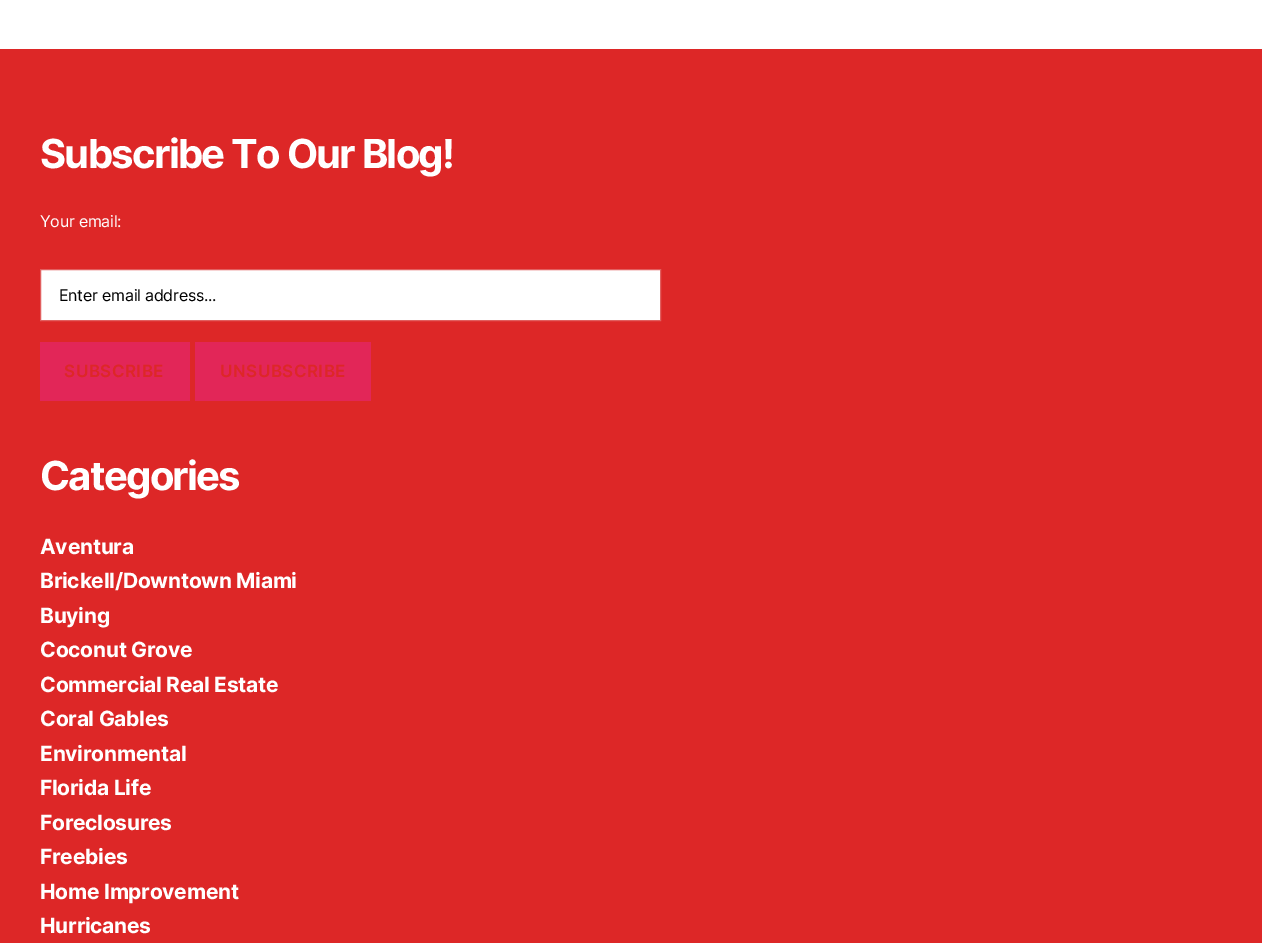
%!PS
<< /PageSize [1262 943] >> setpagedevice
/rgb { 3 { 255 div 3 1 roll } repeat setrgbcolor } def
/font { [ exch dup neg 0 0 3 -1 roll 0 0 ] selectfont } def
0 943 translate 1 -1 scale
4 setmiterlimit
255 255 255 rgb
0 0 1262 943 rectfill
221 39 39 rgb
0 49 1262 894 rectfill
255 255 255 rgb
40.5 269.5 moveto 620 0 rlineto 0 51 rlineto -620 0 rlineto closepath gsave fill grestore
225 95 95 rgb
stroke
226 38 88 rgb
40 342 150 59 rectfill
195 342 176 59 rectfill
/Inter-Bold 40 font
255 255 255 rgb
40 168 moveto -1.7 0 (Subscribe To Our Blog!) ashow
/Inter-Regular 16 font
40 227 moveto -0.25 0 (Your email:) ashow
0 0 0 rgb
59 301 moveto -0.25 0 (Enter email address...) ashow
/Inter-SemiBold 17 font
221 39 39 rgb
64 377 moveto 0.5 0 (SUBSCRIBE) ashow
220 377 moveto 0.5 0 (UNSUBSCRIBE) ashow
/Inter-Bold 40 font
255 255 255 rgb
40 490 moveto -1.7 0 (Categories) ashow
/Inter-Bold 21 font
40 554 moveto -0.25 0 (Aventura) ashow
40 588 moveto -0.25 0 (Brickell/Downtown Miami) ashow
40 623 moveto -0.25 0 (Buying) ashow
40 657 moveto -0.25 0 (Coconut Grove) ashow
40 692 moveto -0.25 0 (Commercial Real Estate) ashow
40 726 moveto -0.25 0 (Coral Gables) ashow
40 761 moveto -0.25 0 (Environmental) ashow
40 795 moveto -0.25 0 (Florida Life) ashow
40 830 moveto -0.25 0 (Foreclosures) ashow
40 864 moveto -0.25 0 (Freebies) ashow
40 899 moveto -0.25 0 (Home Improvement) ashow
40 933 moveto -0.25 0 (Hurricanes) ashow
showpage
